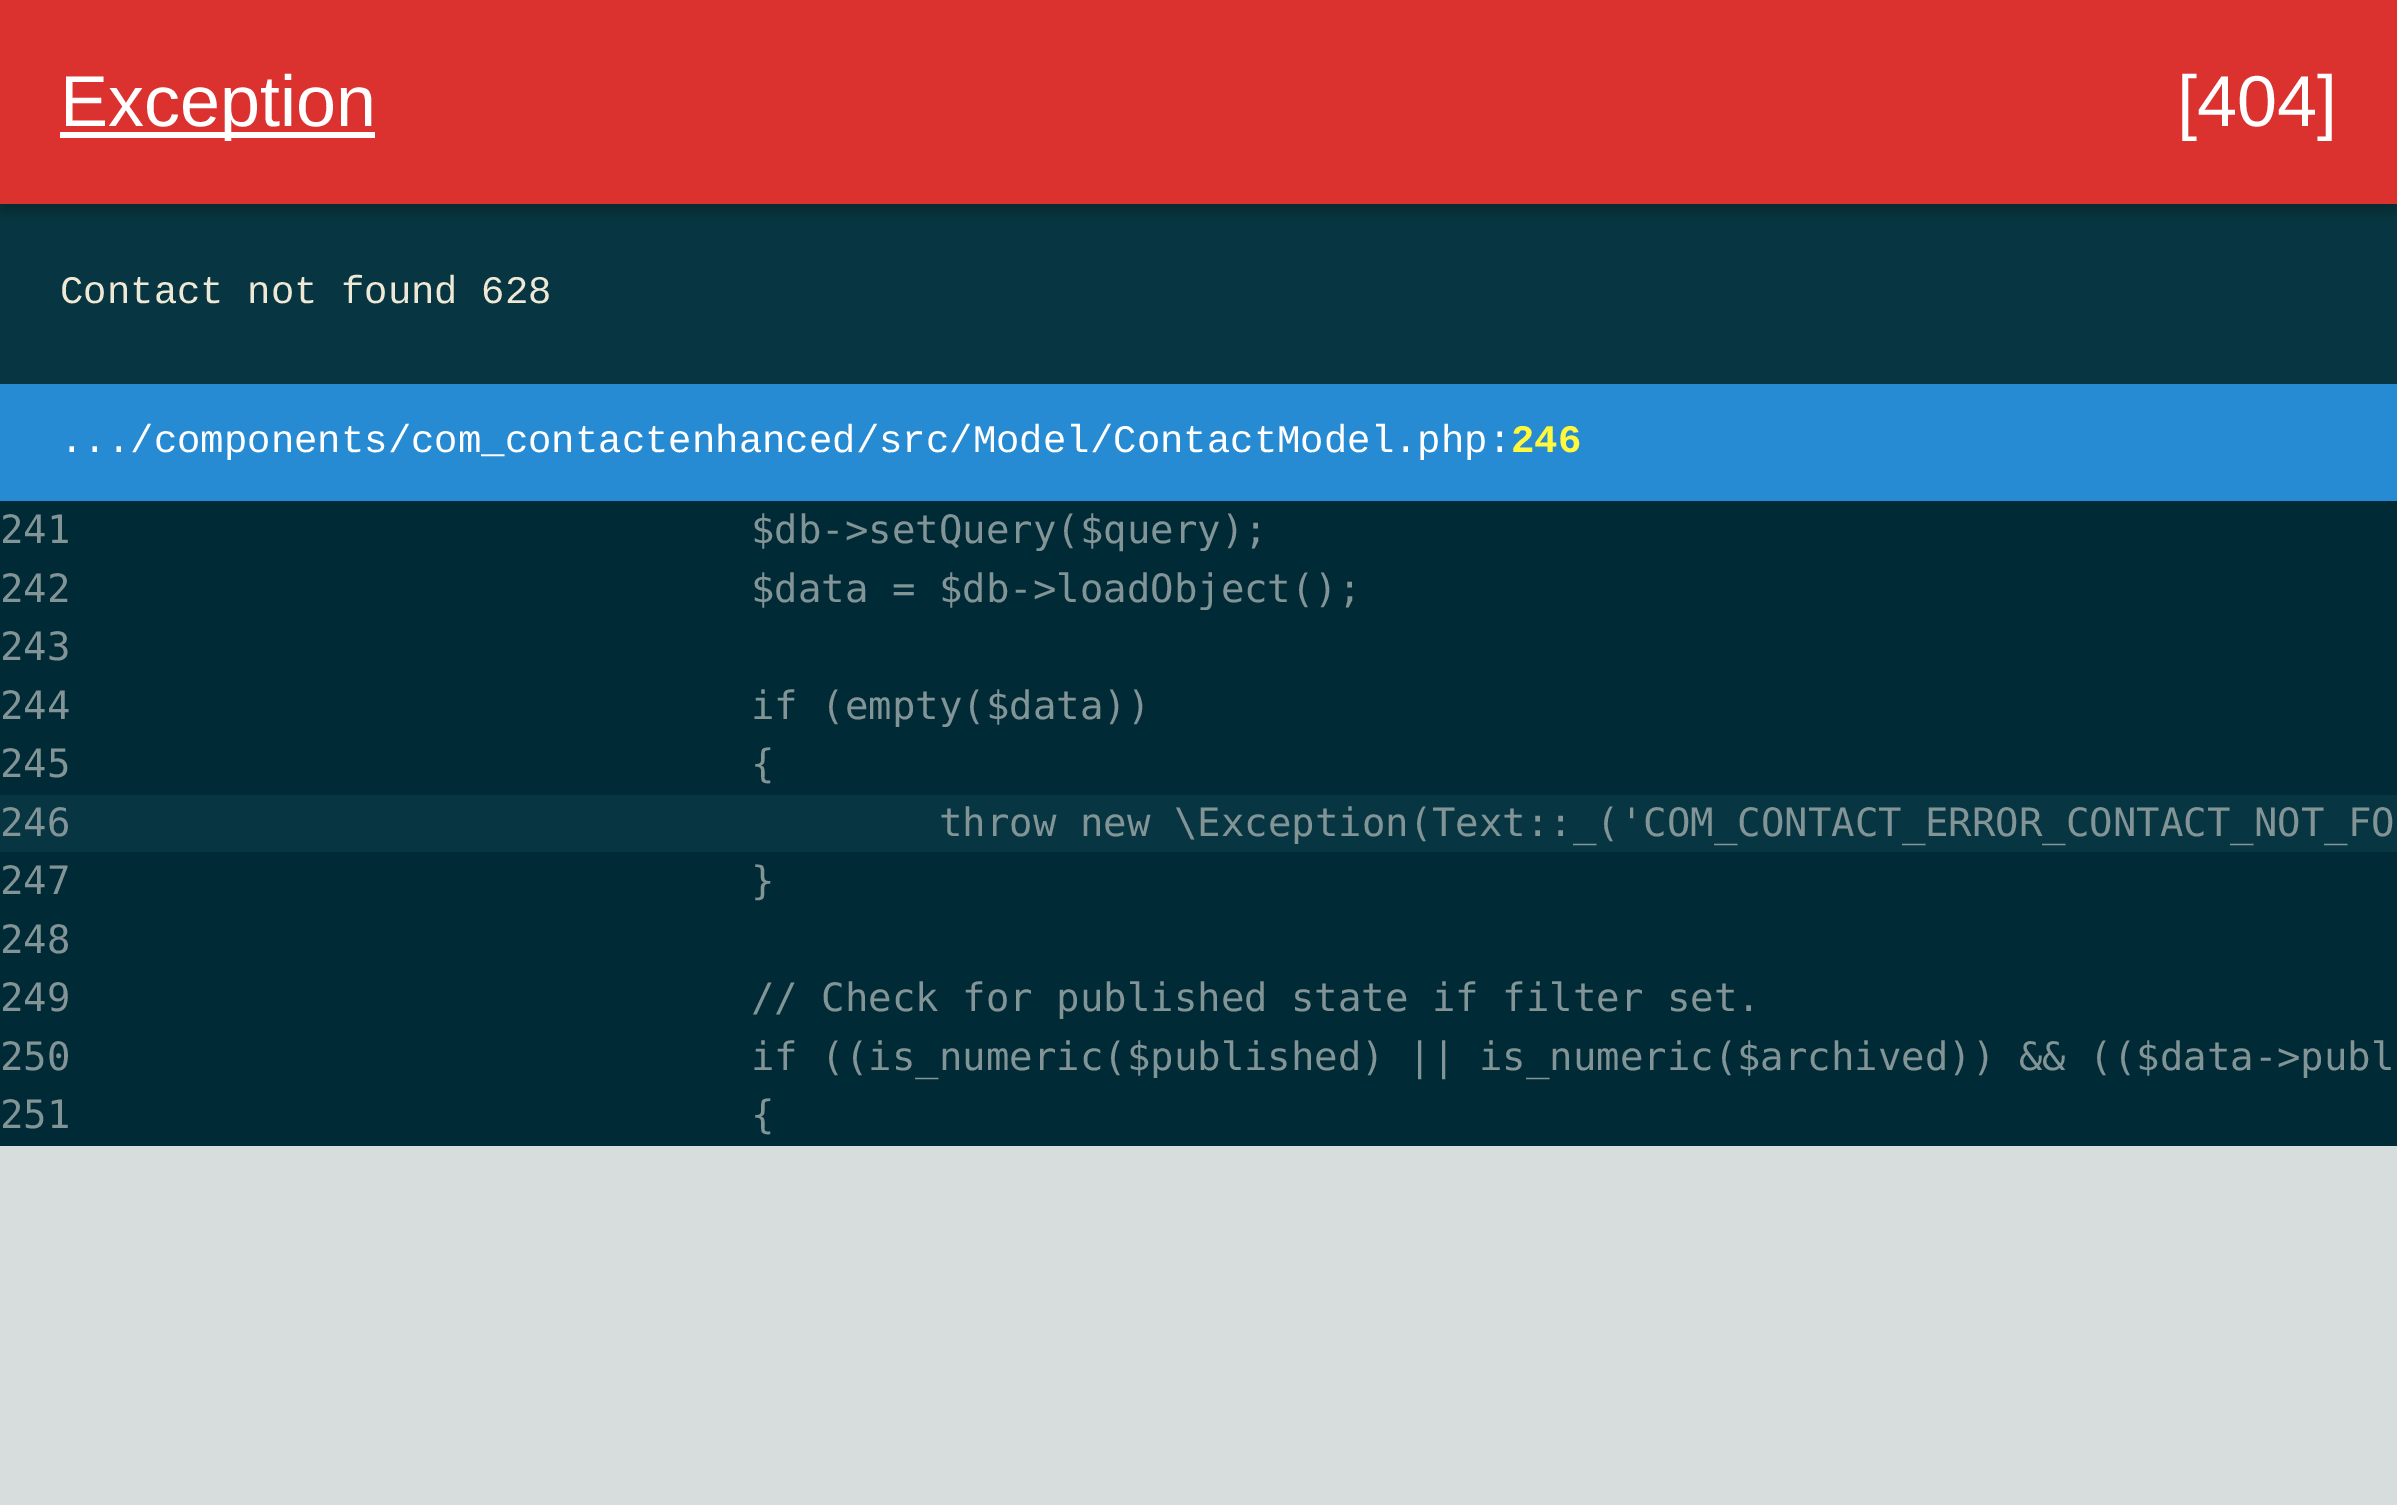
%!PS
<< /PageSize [2397 1505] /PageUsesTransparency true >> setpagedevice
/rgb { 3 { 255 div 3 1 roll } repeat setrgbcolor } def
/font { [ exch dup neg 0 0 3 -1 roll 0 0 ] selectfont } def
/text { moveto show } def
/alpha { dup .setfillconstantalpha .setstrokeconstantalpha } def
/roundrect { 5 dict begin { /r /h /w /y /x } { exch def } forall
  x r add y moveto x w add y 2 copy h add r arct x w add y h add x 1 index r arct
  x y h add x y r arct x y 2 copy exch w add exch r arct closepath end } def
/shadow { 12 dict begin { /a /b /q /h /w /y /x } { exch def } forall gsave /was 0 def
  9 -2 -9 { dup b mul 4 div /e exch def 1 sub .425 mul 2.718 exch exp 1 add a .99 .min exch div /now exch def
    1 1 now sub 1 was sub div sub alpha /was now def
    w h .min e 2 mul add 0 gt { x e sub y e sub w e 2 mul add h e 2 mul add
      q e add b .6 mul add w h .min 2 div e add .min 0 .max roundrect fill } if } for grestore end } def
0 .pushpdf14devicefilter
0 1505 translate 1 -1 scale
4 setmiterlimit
215 220 220 rgb
0 0 2397 1505 rectfill
7 54 66 rgb
0 204 2397 180 rectfill
0 0 0 rgb
0 9 2397 204 0 4.5 0.2 shadow
220 50 47 rgb
0 0 2397 204 rectfill
255 255 255 rgb
60 132 315 6 rectfill
38 139 210 rgb
0 384 2397 117 rectfill
0 43 54 rgb
0 501 2397 645 rectfill
7 54 66 rgb
0 795 2397 57 rectfill
/LiberationSans-Regular 72 font
255 255 255 rgb
(Exception) 60 126 text
([404]) 2177 126 text
/LiberationMono-Regular 39 font
238 232 213 rgb
(Contact not found 628) 60 303 text
255 255 255 rgb
(.../components/com_contactenhanced/src/Model/ContactModel.php:) 60 452 text
/LiberationMono-Bold 39 font
255 248 61 rgb
(246) 1511 452 text
/DejaVuSansMono-Regular 39 font
131 148 150 rgb
(241) 0 543 text
($db->setQuery\($query\);) 751 543 text
(242) 0 602 text
($data = $db->loadObject\(\);) 751 602 text
(243) 0 660 text
(244) 0 719 text
(if \(empty\($data\)\)) 751 719 text
(245) 0 777 text
({) 751 777 text
(246) 0 836 text
(throw new \\Exception\(Text::_\('COM_CONTACT_ERROR_CONTACT_NOT_FO) 939 836 text
(247) 0 894 text
(}) 751 894 text
(248) 0 953 text
(249) 0 1011 text
(// Check for published state if filter set.) 751 1011 text
(250) 0 1070 text
(if \(\(is_numeric\($published\) || is_numeric\($archived\)\) && \(\($data->publ) 751 1070 text
(251) 0 1128 text
({) 751 1128 text
.poppdf14devicefilter showpage
